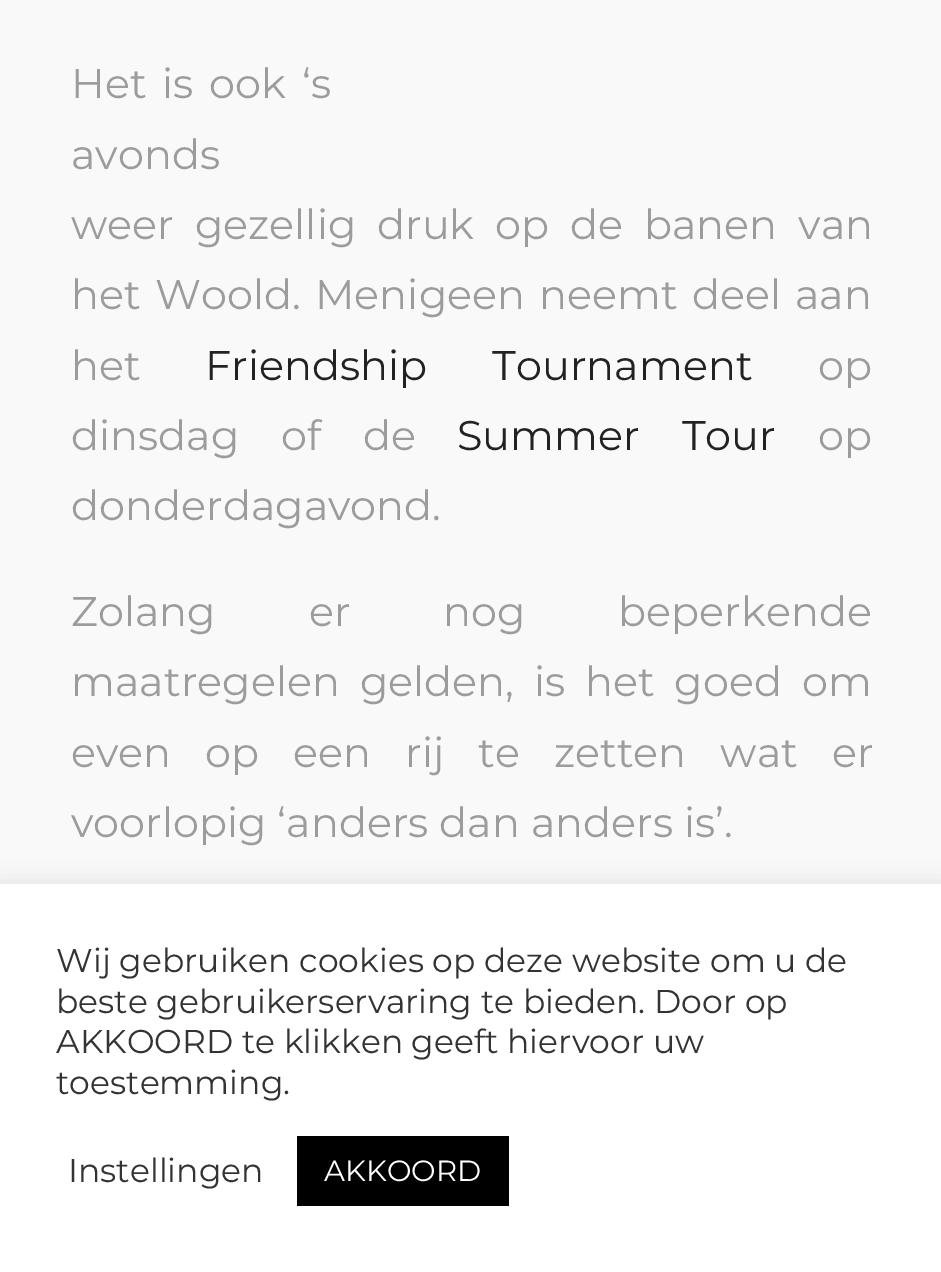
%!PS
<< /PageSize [941 1272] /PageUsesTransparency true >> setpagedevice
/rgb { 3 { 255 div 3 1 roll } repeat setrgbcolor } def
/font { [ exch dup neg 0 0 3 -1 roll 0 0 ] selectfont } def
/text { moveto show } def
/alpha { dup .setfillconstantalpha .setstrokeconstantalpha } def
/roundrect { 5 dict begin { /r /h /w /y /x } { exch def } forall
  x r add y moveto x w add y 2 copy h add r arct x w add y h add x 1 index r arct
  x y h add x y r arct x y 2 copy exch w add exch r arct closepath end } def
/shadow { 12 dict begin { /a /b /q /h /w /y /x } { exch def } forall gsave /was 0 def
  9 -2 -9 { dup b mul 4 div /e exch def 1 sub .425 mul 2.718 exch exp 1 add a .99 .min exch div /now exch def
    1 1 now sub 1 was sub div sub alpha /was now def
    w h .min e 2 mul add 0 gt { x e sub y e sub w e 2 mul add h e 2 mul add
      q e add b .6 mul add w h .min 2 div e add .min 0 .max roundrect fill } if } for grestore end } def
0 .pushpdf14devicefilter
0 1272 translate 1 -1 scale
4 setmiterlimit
249 249 249 rgb
0 0 941 1272 rectfill
172 171 171 rgb
0 882 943 389 0 11 0.3 shadow
255 255 255 rgb
0 884 941 388 rectfill
0 0 0 rgb
297 1136 212 70 rectfill
/Montserrat-Thin 41.4 font
156 156 156 rgb
71 98 moveto 5 0 32 (Het is ook ‘s) widthshow
(avonds) 71 169 text
71 239 moveto 10 0 32 (weer gezellig druk op de banen van) widthshow
71 309 moveto 3.25 0 32 (het Woold. Menigeen neemt deel aan) widthshow
(het) 71 380 text
34 34 34 rgb
205 380 moveto 54 0 32 (Friendship Tournament) widthshow
156 156 156 rgb
(op) 818 380 text
71 450 moveto 31 0 32 (dinsdag of de) widthshow
34 34 34 rgb
457 450 moveto 31 0 32 (Summer Tour) widthshow
156 156 156 rgb
(op) 818 450 text
(donderdagavond.) 71 520 text
71 626 moveto 82 0 32 (Zolang er nog beperkende) widthshow
71 696 moveto 9 0 32 (maatregelen gelden, is het goed om) widthshow
71 767 moveto 23 0 32 (even op een rij te zetten wat er) widthshow
(voorlopig ‘anders dan anders is’.) 71 837 text
/Montserrat-Thin 33 font
51 51 51 rgb
(Wij gebruiken cookies op deze website om u de) 56 972 text
(beste gebruikerservaring te bieden. Door op) 56 1013 text
(AKKOORD te klikken geeft hiervoor uw) 56 1053 text
(toestemming.) 56 1094 text
(Instellingen) 68 1182 text
/Montserrat-Thin 29.25 font
255 255 255 rgb
(AKKOORD) 324 1181 text
.poppdf14devicefilter showpage
